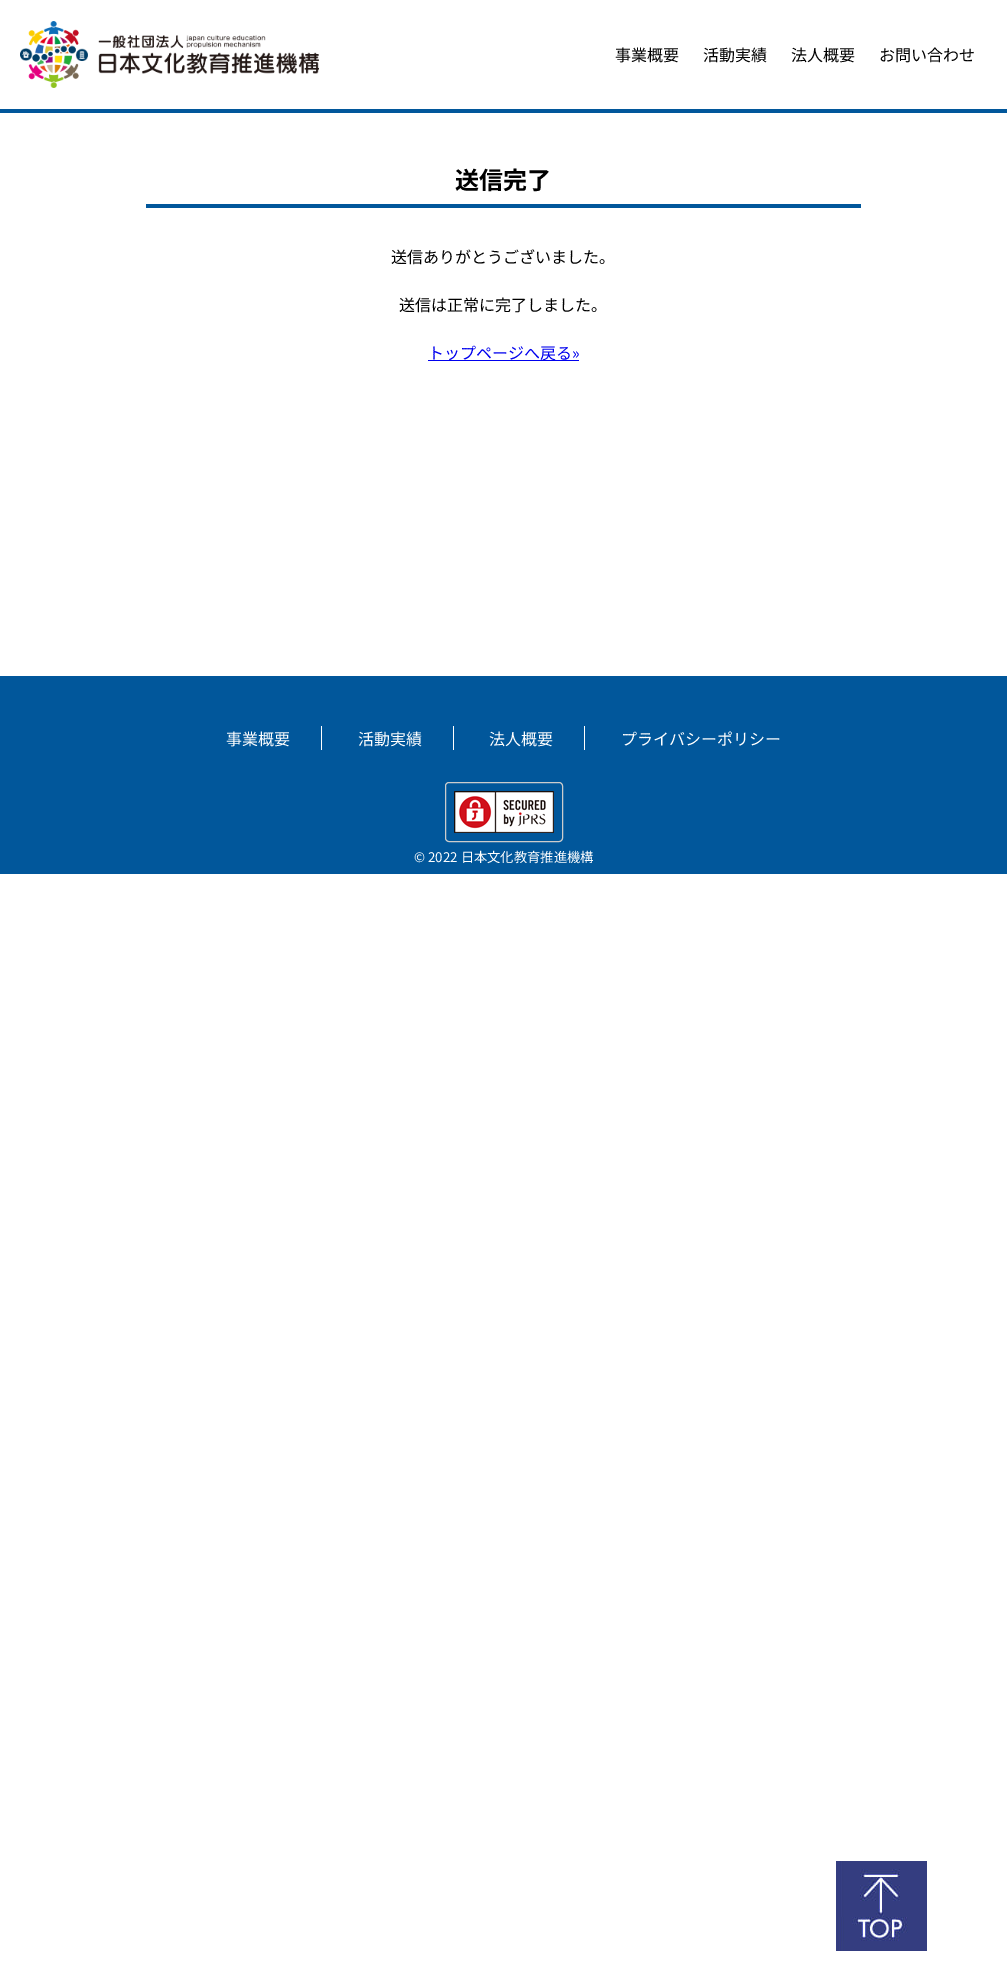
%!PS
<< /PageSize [1007 1963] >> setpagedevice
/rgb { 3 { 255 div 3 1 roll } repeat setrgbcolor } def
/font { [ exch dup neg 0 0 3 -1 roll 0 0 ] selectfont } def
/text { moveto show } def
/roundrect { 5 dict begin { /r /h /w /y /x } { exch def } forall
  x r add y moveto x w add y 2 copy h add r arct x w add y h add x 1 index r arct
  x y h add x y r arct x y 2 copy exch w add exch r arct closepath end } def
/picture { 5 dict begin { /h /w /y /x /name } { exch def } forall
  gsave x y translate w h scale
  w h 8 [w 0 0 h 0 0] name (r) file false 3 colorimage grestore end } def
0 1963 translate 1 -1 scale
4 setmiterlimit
255 255 255 rgb
0 0 1007 1963 rectfill
1 87 155 rgb
0 109 1007 4 rectfill
(img_01.rgb) 20 21 299 67 picture
146 204 715 4 rectfill
0 0 238 rgb
428 360 151 1 rectfill
1 87 155 rgb
0 676 1007 198 rectfill
255 255 255 rgb
321 726 1 24 rectfill
453 726 1 24 rectfill
584 726 1 24 rectfill
204 204 204 rgb
445.5 782.5 117 59 3.5 roundrect stroke
(img_02.rgb) 454 791 100 42 picture
(img_03.rgb) 836 1861 91 90 picture
/NotoSansJP-Regular 16 font
0 0 0 rgb
(事業概要) 615 61 text
(活動実績) 703 61 text
(法人概要) 791 61 text
(お問い合わせ) 879 61 text
/NotoSansJP-Bold 24 font
(送信完了) 455 189 text
/NotoSansJP-Regular 16 font
(送信ありがとうございました。) 391 263 text
(送信は正常に完了しました。) 399 311 text
0 0 238 rgb
(トップページへ戻る») 428 359 text
255 255 255 rgb
(事業概要) 226 745 text
(活動実績) 358 745 text
(法人概要) 489 745 text
(プライバシーポリシー) 621 745 text
/NotoSansJP-Regular 13.3 font
(© 2022 日本文化教育推進機構) 414 862 text
showpage
